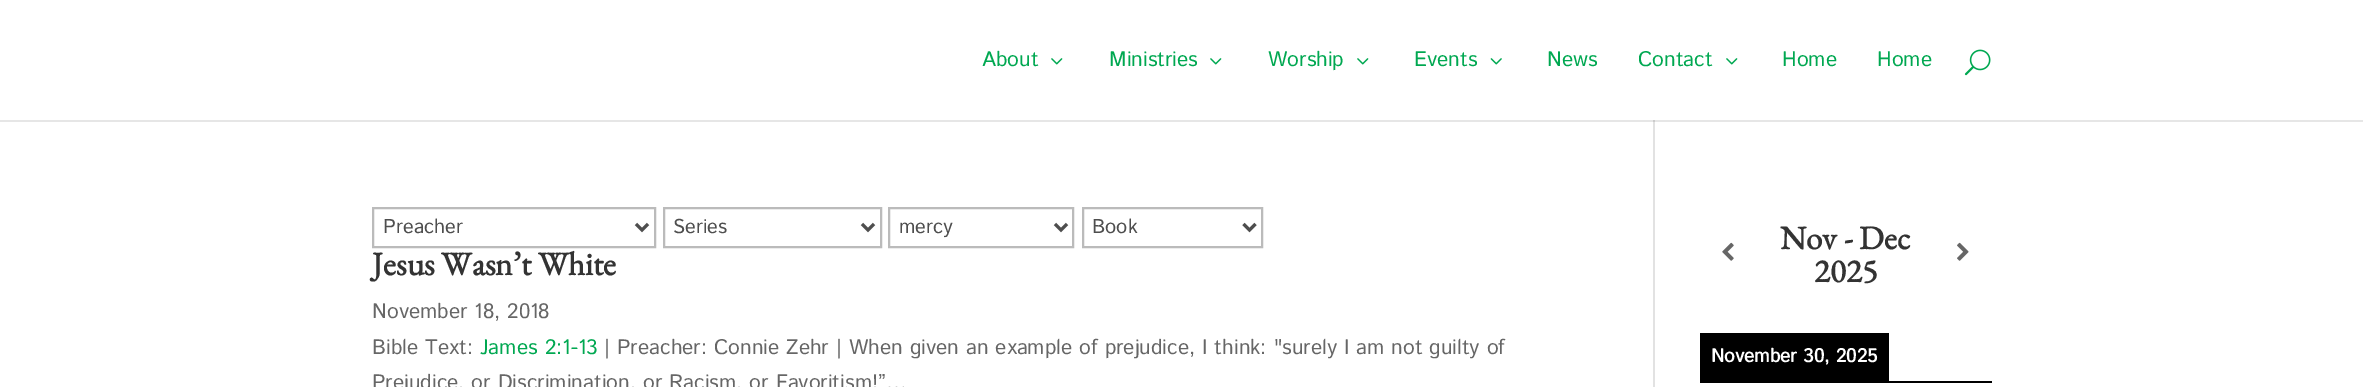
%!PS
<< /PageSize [2363 387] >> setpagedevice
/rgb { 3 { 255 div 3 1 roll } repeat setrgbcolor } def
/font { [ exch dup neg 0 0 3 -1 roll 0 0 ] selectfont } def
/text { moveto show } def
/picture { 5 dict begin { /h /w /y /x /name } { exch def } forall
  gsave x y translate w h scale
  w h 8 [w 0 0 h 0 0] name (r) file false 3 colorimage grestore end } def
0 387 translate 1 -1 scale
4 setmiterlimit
255 255 255 rgb
0 0 2363 387 rectfill
230 230 230 rgb
0 120 2363 2 rectfill
(img_01.rgb) 1051 58 12 7 picture
(img_01.rgb) 1210 58 12 7 picture
(img_01.rgb) 1357 58 12 7 picture
(img_02.rgb) 1490 58 12 7 picture
(img_01.rgb) 1726 58 12 7 picture
(img_03.rgb) 1964 49 27 27 picture
226 226 226 rgb
1653 120 2 267 rectfill
203 203 203 rgb
1653 120 2 2 rectfill
187 187 187 rgb
2 setlinewidth
373 208 282 39 rectstroke
78 78 78 rgb
3 setlinewidth
636 224 moveto 6 6 rlineto 6 -6 rlineto stroke
187 187 187 rgb
2 setlinewidth
664 208 217 39 rectstroke
78 78 78 rgb
3 setlinewidth
862 224 moveto 6 6 rlineto 6 -6 rlineto stroke
187 187 187 rgb
2 setlinewidth
889 208 184 39 rectstroke
78 78 78 rgb
3 setlinewidth
1055 224 moveto 6 6 rlineto 6 -6 rlineto stroke
187 187 187 rgb
2 setlinewidth
1083 208 179 39 rectstroke
78 78 78 rgb
3 setlinewidth
1243.5 224 moveto 6 6 rlineto 6 -6 rlineto stroke
(img_04.rgb) 1722 242 12 19 picture
(img_05.rgb) 1957 242 12 19 picture
0 0 0 rgb
1700 381 292 2 rectfill
1700 333 189 48 rectfill
/IstokWeb-Regular 21 font
0 168 81 rgb
(About) 982 66 text
(Ministries) 1109 66 text
(Worship) 1268 66 text
(Events) 1414 66 text
(News) 1547 66 text
(Contact) 1638 66 text
(Home) 1782 66 text
(Home) 1877 66 text
/IstokWeb-Regular 20 font
78 78 78 rgb
(Preacher) 383 233 text
(Series) 673 233 text
(mercy) 899 233 text
(Book) 1092 233 text
/EBGaramond-Bold 33 font
51 51 51 rgb
(Jesus Wasn’t White) 372 275 text
/IstokWeb-Regular 21 font
102 102 102 rgb
(November 18, 2018) 372 318 text
(Bible Text:) 372 354 text
0 168 81 rgb
(James 2:1-13) 480 354 text
102 102 102 rgb
(| Preacher: Connie Zehr | When given an example of prejudice, I think: "surely I am not guilty of) 604 354 text
(Prejudice, or Discrimination, or Racism, or Favoritism!”…) 372 389 text
/EBGaramond-Bold 33 font
51 51 51 rgb
(Nov - Dec) 1780 249 text
(2025) 1814 282 text
/IstokWeb-Bold 19 font
255 255 255 rgb
(November 30, 2025) 1711 362 text
showpage
